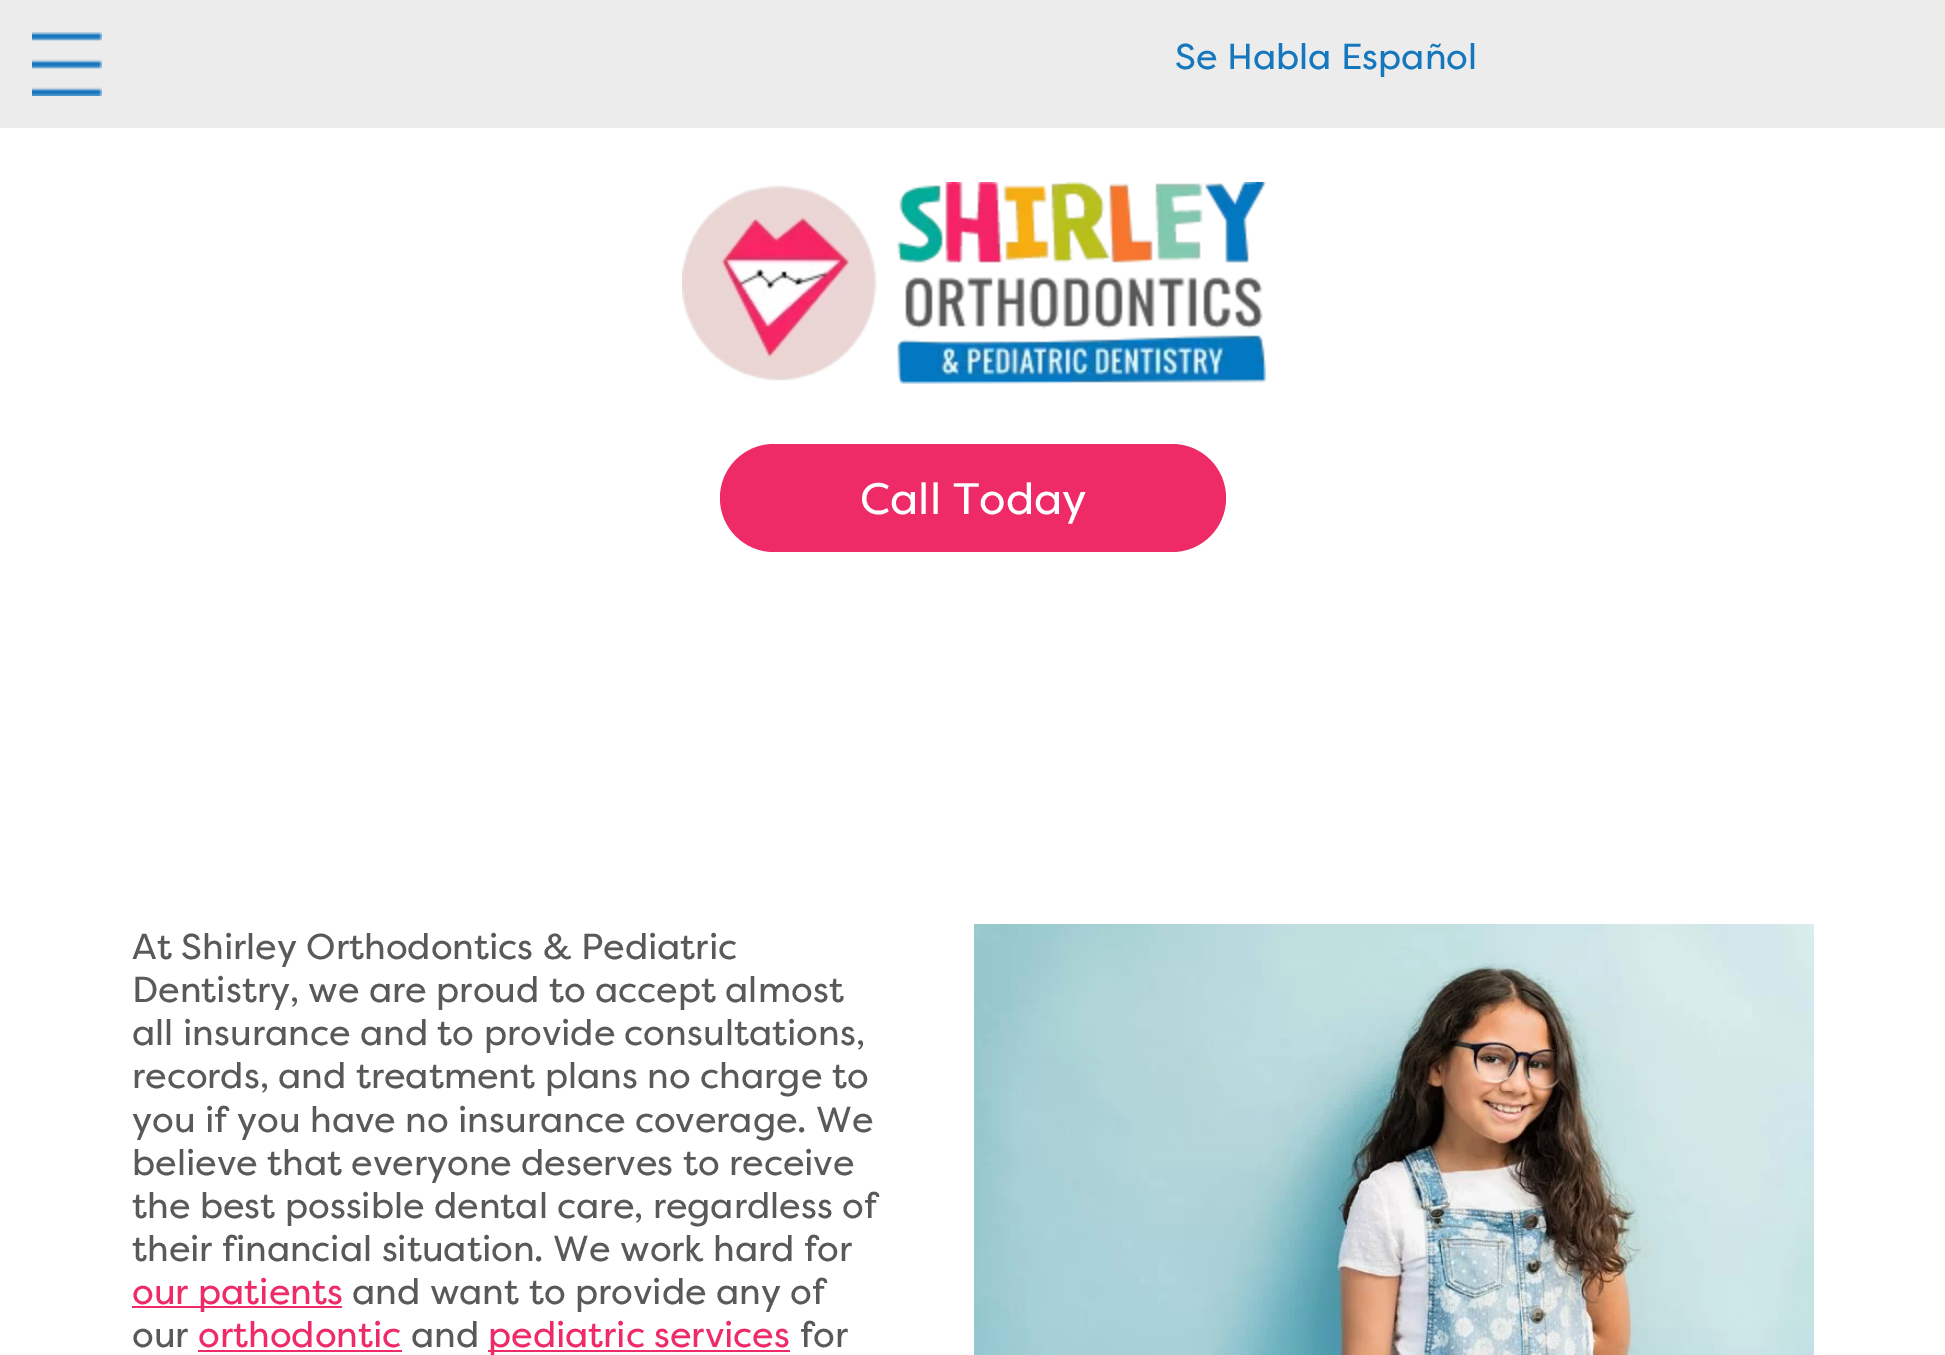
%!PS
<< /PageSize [1945 1355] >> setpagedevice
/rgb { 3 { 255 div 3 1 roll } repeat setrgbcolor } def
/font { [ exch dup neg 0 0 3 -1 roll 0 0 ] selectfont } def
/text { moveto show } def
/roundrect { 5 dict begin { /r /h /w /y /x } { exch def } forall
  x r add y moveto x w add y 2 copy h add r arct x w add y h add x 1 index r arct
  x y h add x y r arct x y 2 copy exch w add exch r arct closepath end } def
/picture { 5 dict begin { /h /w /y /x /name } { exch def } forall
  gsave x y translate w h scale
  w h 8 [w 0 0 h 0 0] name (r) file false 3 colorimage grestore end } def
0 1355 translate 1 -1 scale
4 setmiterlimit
255 255 255 rgb
0 0 1945 1355 rectfill
236 236 236 rgb
0 0 1945 128 rectfill
(img_01.rgb) 32 32 70 64 picture
(img_02.rgb) 682 182 584 202 picture
238 42 103 rgb
720 444 506 108 54 roundrect fill
(img_03.rgb) 974 924 840 431 picture
132 1306 210 2 rectfill
198 1350 204 2 rectfill
488 1350 302 2 rectfill
/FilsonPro-Regular 36 font
21 119 189 rgb
(Se Habla Español) 1175 69 text
/FilsonPro-Regular 44 font
255 255 255 rgb
(Call Today) 860 514 text
/FilsonPro-Regular 36 font
88 89 91 rgb
(At Shirley Orthodontics & Pediatric) 132 959 text
(Dentistry, we are proud to accept almost) 132 1002 text
(all insurance and to provide consultations,) 132 1045 text
(records, and treatment plans no charge to) 132 1088 text
(you if you have no insurance coverage. We) 132 1132 text
(believe that everyone deserves to receive) 132 1175 text
(the best possible dental care, regardless of) 132 1218 text
(their financial situation. We work hard for) 132 1261 text
238 42 103 rgb
(our patients) 132 1304 text
88 89 91 rgb
(and want to provide any of) 352 1304 text
(our) 132 1347 text
238 42 103 rgb
(orthodontic) 198 1347 text
88 89 91 rgb
(and) 411 1347 text
238 42 103 rgb
(pediatric services) 488 1347 text
88 89 91 rgb
(for) 800 1347 text
showpage
